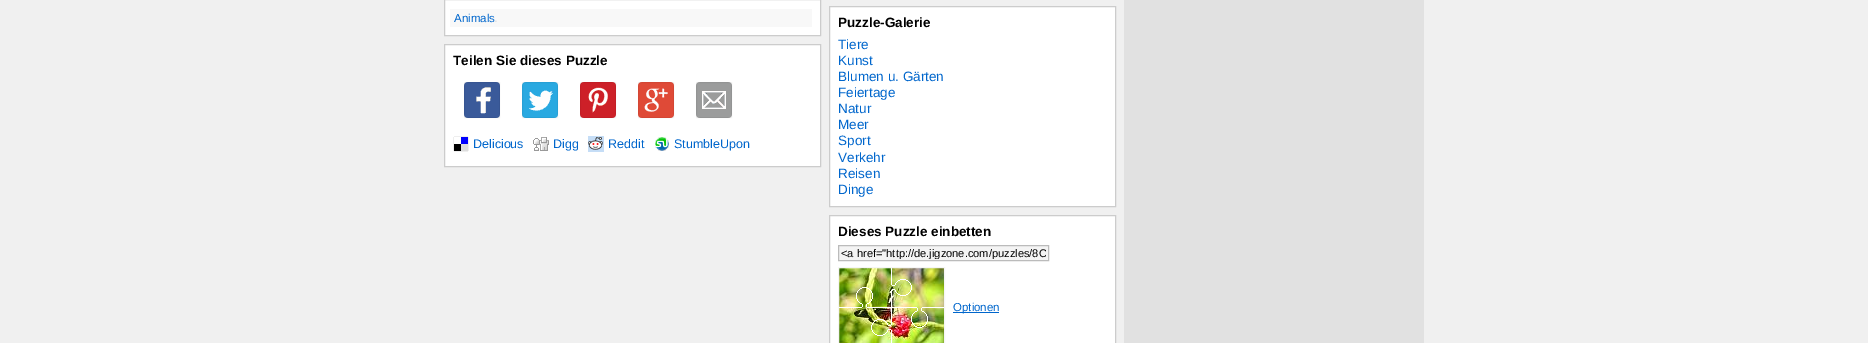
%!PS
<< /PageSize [1868 343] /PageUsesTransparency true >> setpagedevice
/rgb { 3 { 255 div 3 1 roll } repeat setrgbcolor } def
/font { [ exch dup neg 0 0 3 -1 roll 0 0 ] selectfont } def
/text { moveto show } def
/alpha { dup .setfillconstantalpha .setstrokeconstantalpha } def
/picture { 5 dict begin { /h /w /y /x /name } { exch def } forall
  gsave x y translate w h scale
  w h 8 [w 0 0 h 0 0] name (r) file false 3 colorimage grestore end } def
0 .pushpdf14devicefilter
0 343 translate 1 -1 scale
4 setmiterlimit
240 240 240 rgb
0 0 1868 343 rectfill
255 255 255 rgb
444.5 -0.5 moveto 376 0 rlineto 0 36 rlineto -376 0 rlineto closepath gsave fill grestore
204 204 204 rgb
stroke
248 248 248 rgb
450 9 362 18 rectfill
255 255 255 rgb
444.5 44.5 moveto 376 0 rlineto 0 122 rlineto -376 0 rlineto closepath gsave fill grestore
204 204 204 rgb
stroke
(img_01.rgb) 464 82 36 36 picture
0.05 alpha
0 0 0 rgb
464.5 82.5 35 35 rectstroke
1 alpha
(img_02.rgb) 522 82 36 36 picture
0.05 alpha
522.5 82.5 35 35 rectstroke
1 alpha
(img_03.rgb) 580 82 36 36 picture
0.05 alpha
580.5 82.5 35 35 rectstroke
1 alpha
(img_04.rgb) 638 82 36 36 picture
0.05 alpha
638.5 82.5 35 35 rectstroke
1 alpha
(img_05.rgb) 696 82 36 36 picture
0.05 alpha
696.5 82.5 35 35 rectstroke
1 alpha
(img_06.rgb) 453 136 16 16 picture
(img_07.rgb) 533 137 16 14 picture
(img_08.rgb) 588 136 16 16 picture
(img_09.rgb) 655 137 14 14 picture
255 255 255 rgb
829.5 6.5 moveto 286 0 rlineto 0 200 rlineto -286 0 rlineto closepath gsave fill grestore
204 204 204 rgb
stroke
255 255 255 rgb
829.5 215.5 moveto 286 0 rlineto 0 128 rlineto -286 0 rlineto closepath gsave fill grestore
204 204 204 rgb
stroke
244 244 244 rgb
838.5 245.5 moveto 210 0 rlineto 0 15 rlineto -210 0 rlineto closepath gsave fill grestore
187 187 187 rgb
stroke
(img_10.rgb) 839 268 105 75 picture
245 245 245 rgb
838.5 267.5 106 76 rectstroke
0 102 204 rgb
953 312 46 1 rectfill
225 225 225 rgb
1124 0 300 343 rectfill
/LiberationSans-Regular 11.5 font
0 102 204 rgb
(Animals) 454 22 text
/LiberationSans-Regular 13.5 font
221 221 221 rgb
(.) 494 22 text
/LiberationSans-Bold 13.5 font
0 0 0 rgb
(Teilen Sie dieses Puzzle) 453 65 text
/LiberationSans-Regular 12.5 font
0 102 204 rgb
(Delicious) 473 148 text
(Digg) 553 148 text
(Reddit) 608 148 text
(StumbleUpon) 674 148 text
/LiberationSans-Bold 13.5 font
0 0 0 rgb
(Puzzle-Galerie) 838 27 text
/LiberationSans-Regular 13.5 font
0 102 204 rgb
(Tiere) 838 49 text
(Kunst) 838 65 text
(Blumen u. Gärten) 838 81 text
(Feiertage) 838 97 text
(Natur) 838 113 text
(Meer) 838 129 text
(Sport) 838 145 text
(Verkehr) 838 162 text
(Reisen) 838 178 text
(Dinge) 838 194 text
/LiberationSans-Bold 13.5 font
0 0 0 rgb
(Dieses Puzzle einbetten) 838 236 text
gsave
841 247 205 12 rectclip
/LiberationSans-Regular 11.1 font
(<a href="http://de.jigzone.com/puzzles/8C) 841 257 text
grestore
/LiberationSans-Regular 11.5 font
0 102 204 rgb
(Optionen) 953 311 text
.poppdf14devicefilter showpage
